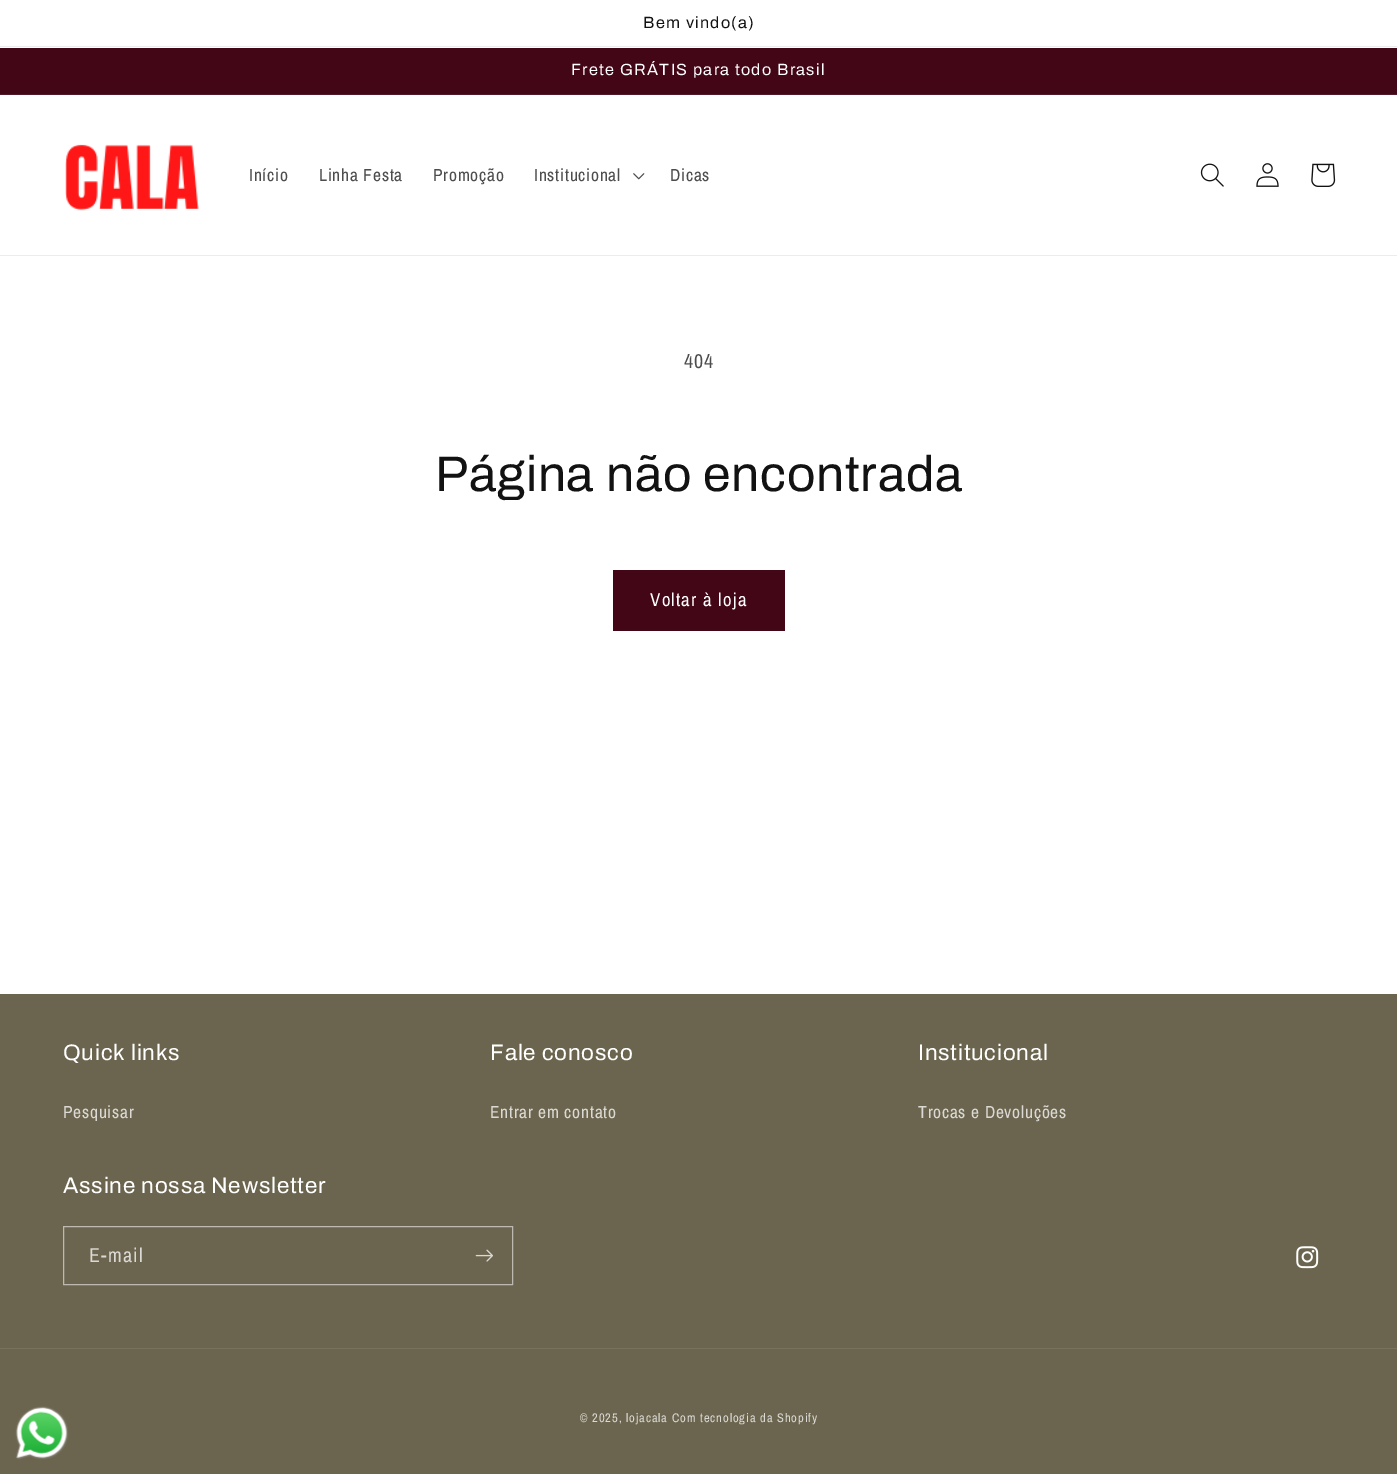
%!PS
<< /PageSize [1397 1474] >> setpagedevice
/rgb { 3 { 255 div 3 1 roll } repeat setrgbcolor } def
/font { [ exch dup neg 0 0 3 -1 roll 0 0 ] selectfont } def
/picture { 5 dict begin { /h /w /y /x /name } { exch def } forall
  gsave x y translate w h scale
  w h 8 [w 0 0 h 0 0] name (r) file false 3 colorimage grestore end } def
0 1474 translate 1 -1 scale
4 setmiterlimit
255 255 255 rgb
0 0 1397 1474 rectfill
236 236 236 rgb
0 46 1397 1 rectfill
67 6 22 rgb
0 48 1397 46 rectfill
82 26 41 rgb
0 94 1397 1 rectfill
236 236 236 rgb
0 255 1397 1 rectfill
(img_01.rgb) 65 144 134 67 picture
(img_02.rgb) 633 173 12 7 picture
(img_03.rgb) 1200 163 24 24 picture
(img_04.rgb) 1256 163 23 24 picture
(img_05.rgb) 1311 163 25 24 picture
67 6 22 rgb
613 570 172 61 rectfill
107 101 79 rgb
0 994 1397 480 rectfill
188 186 176 rgb
63.5 1226.5 449 58 rectstroke
(img_06.rgb) 475 1249 18 13 picture
(img_07.rgb) 1296 1246 23 23 picture
119 113 93 rgb
0 1348 1397 1 rectfill
(img_08.rgb) 15 1406 54 54 picture
/Archivo-Regular 16.25 font
18 18 18 rgb
643 28 moveto 1.25 0 (Bem vindo\(a\)) ashow
255 255 255 rgb
571 75 moveto 1.25 0 (Frete GRÁTIS para todo Brasil) ashow
/ArchivoNarrow-Regular 17.5 font
77 77 77 rgb
249 181 moveto 0.75 0 (Início) ashow
319 181 moveto 0.75 0 (Linha Festa) ashow
433 181 moveto 0.75 0 (Promoção) ashow
534 181 moveto 0.75 0 (Institucional) ashow
670 181 moveto 0.75 0 (Dicas) ashow
/ArchivoNarrow-Regular 20 font
684 368 moveto 0.75 0 (404) ashow
/Archivo-Regular 50 font
18 18 18 rgb
435 491 moveto 0.75 0 (Página não encontrada) ashow
/ArchivoNarrow-Regular 18.75 font
255 255 255 rgb
650 606 moveto 1.25 0 (Voltar à loja) ashow
/Archivo-Regular 22.5 font
63 1060 moveto 0.75 0 (Quick links) ashow
/ArchivoNarrow-Regular 17.5 font
218 217 211 rgb
63 1118 moveto 0.75 0 (Pesquisar) ashow
/Archivo-Regular 22.5 font
255 255 255 rgb
490 1060 moveto 0.75 0 (Fale conosco) ashow
/ArchivoNarrow-Regular 17.5 font
218 217 211 rgb
490 1118 moveto 0.75 0 (Entrar em contato) ashow
/Archivo-Regular 22.5 font
255 255 255 rgb
918 1060 moveto 0.75 0 (Institucional) ashow
/ArchivoNarrow-Regular 17.5 font
218 217 211 rgb
918 1118 moveto 0.75 0 (Trocas e Devoluções) ashow
/Archivo-Regular 22.5 font
255 255 255 rgb
63 1193 moveto 0.75 0 (Assine nossa Newsletter) ashow
/ArchivoNarrow-Regular 20 font
218 217 211 rgb
89 1262 moveto 1.25 0 (E-mail) ashow
/ArchivoNarrow-Regular 12.5 font
580 1422 moveto 0.9 0 (© 2025, lojacala) ashow
672 1422 moveto 0.9 0 (Com tecnologia da Shopify) ashow
showpage
